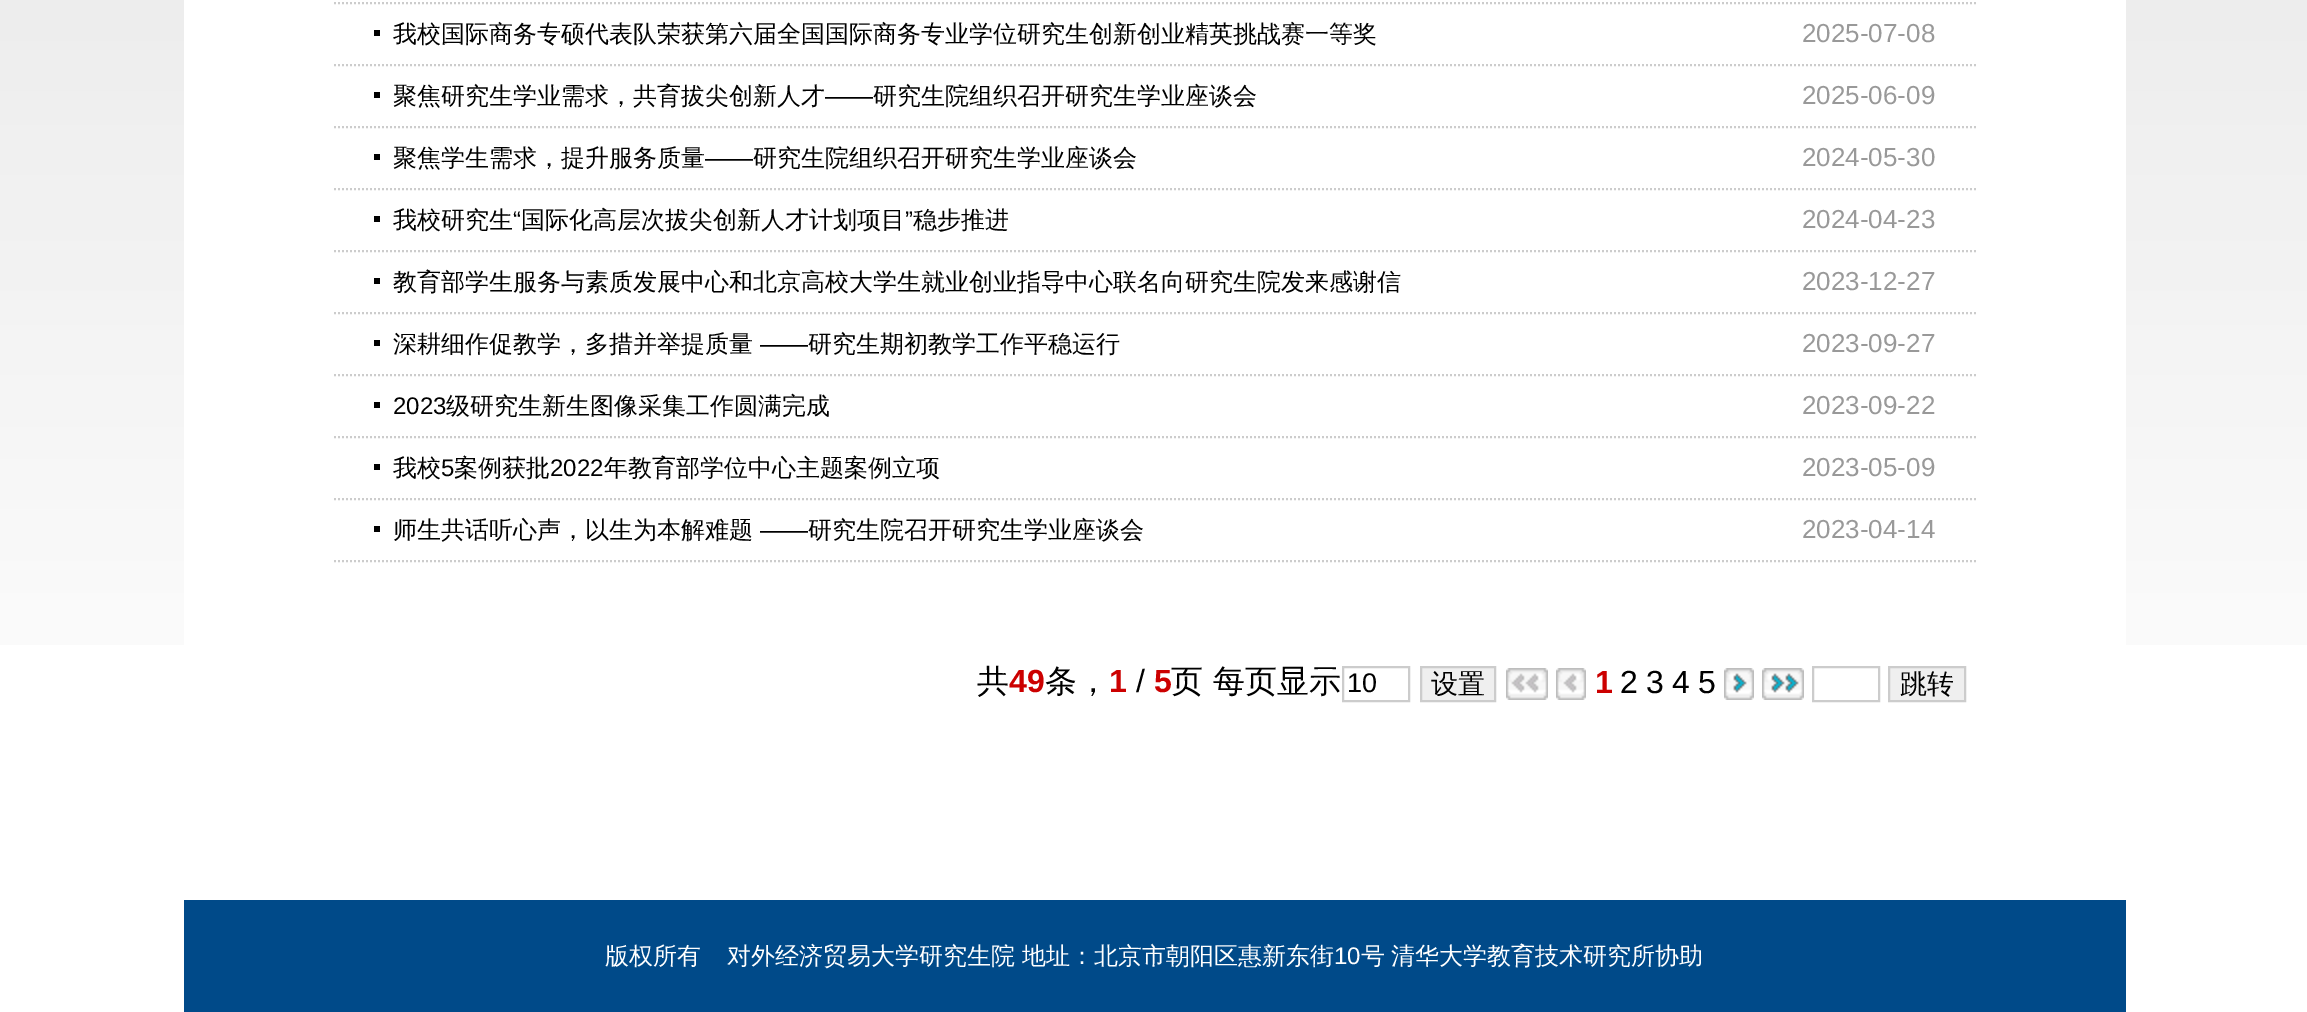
%!PS
<< /PageSize [2307 1012] >> setpagedevice
/rgb { 3 { 255 div 3 1 roll } repeat setrgbcolor } def
/font { [ exch dup neg 0 0 3 -1 roll 0 0 ] selectfont } def
/text { moveto show } def
/picture { 5 dict begin { /h /w /y /x /name } { exch def } forall
  gsave x y translate w h scale
  w h 8 [w 0 0 h 0 0] name (r) file false 3 colorimage grestore end } def
0 1012 translate 1 -1 scale
4 setmiterlimit
255 255 255 rgb
0 0 2307 1012 rectfill
(img_01.rgb) 0 0 2307 645 picture
184 0 1942 645 rectfill
204 204 204 rgb
2 setlinewidth
[2 2] 0 setdash
334 3 moveto 1642 0 rlineto stroke
334 65 moveto 1642 0 rlineto stroke
0 0 0 rgb
374 30 6 6 rectfill
204 204 204 rgb
334 127 moveto 1642 0 rlineto stroke
0 0 0 rgb
374 92 6 6 rectfill
204 204 204 rgb
334 189 moveto 1642 0 rlineto stroke
0 0 0 rgb
374 154 6 6 rectfill
204 204 204 rgb
334 251 moveto 1642 0 rlineto stroke
0 0 0 rgb
374 216 6 6 rectfill
204 204 204 rgb
334 313 moveto 1642 0 rlineto stroke
0 0 0 rgb
374 278 6 6 rectfill
204 204 204 rgb
334 375 moveto 1642 0 rlineto stroke
0 0 0 rgb
374 340 6 6 rectfill
204 204 204 rgb
334 437 moveto 1642 0 rlineto stroke
0 0 0 rgb
374 402 6 6 rectfill
204 204 204 rgb
334 499 moveto 1642 0 rlineto stroke
0 0 0 rgb
374 464 6 6 rectfill
204 204 204 rgb
334 561 moveto 1642 0 rlineto stroke
0 0 0 rgb
374 526 6 6 rectfill
204 204 204 rgb
[] 0 setdash
1343 667 66 34 rectstroke
239 239 239 rgb
1421 667 moveto 74 0 rlineto 0 34 rlineto -74 0 rlineto closepath gsave fill grestore
204 204 204 rgb
stroke
(img_02.rgb) 1506 668 42 32 picture
(img_03.rgb) 1556 668 30 32 picture
(img_04.rgb) 1724 668 30 32 picture
(img_05.rgb) 1762 668 42 32 picture
1813 667 66 34 rectstroke
239 239 239 rgb
1889 667 moveto 76 0 rlineto 0 34 rlineto -76 0 rlineto closepath gsave fill grestore
204 204 204 rgb
stroke
0 74 137 rgb
184 900 1942 112 rectfill
/WenQuanYiZenHei-Medium 24 font
0 0 0 rgb
(我校国际商务专硕代表队荣获第六届全国国际商务专业学位研究生创新创业精英挑战赛一等奖) 393 42 text
/LiberationSans-Regular 26 font
153 153 153 rgb
(2025-07-08) 1802 42 text
/WenQuanYiZenHei-Medium 24 font
0 0 0 rgb
(聚焦研究生学业需求，共育拔尖创新人才) 393 104 text
/LiberationSans-Regular 24 font
(——) 825 104 text
/WenQuanYiZenHei-Medium 24 font
(研究生院组织召开研究生学业座谈会) 873 104 text
/LiberationSans-Regular 26 font
153 153 153 rgb
(2025-06-09) 1802 104 text
/WenQuanYiZenHei-Medium 24 font
0 0 0 rgb
(聚焦学生需求，提升服务质量) 393 166 text
/LiberationSans-Regular 24 font
(——) 705 166 text
/WenQuanYiZenHei-Medium 24 font
(研究生院组织召开研究生学业座谈会) 753 166 text
/LiberationSans-Regular 26 font
153 153 153 rgb
(2024-05-30) 1802 166 text
/WenQuanYiZenHei-Medium 24 font
0 0 0 rgb
(我校研究生) 393 228 text
/LiberationSans-Regular 24 font
(“) 513 228 text
/WenQuanYiZenHei-Medium 24 font
(国际化高层次拔尖创新人才计划项目) 521 228 text
/LiberationSans-Regular 24 font
(”) 905 228 text
/WenQuanYiZenHei-Medium 24 font
(稳步推进) 913 228 text
/LiberationSans-Regular 26 font
153 153 153 rgb
(2024-04-23) 1802 228 text
/WenQuanYiZenHei-Medium 24 font
0 0 0 rgb
(教育部学生服务与素质发展中心和北京高校大学生就业创业指导中心联名向研究生院发来感谢信) 393 290 text
/LiberationSans-Regular 26 font
153 153 153 rgb
(2023-12-27) 1802 290 text
/WenQuanYiZenHei-Medium 24 font
0 0 0 rgb
(深耕细作促教学，多措并举提质量) 393 352 text
/LiberationSans-Regular 24 font
(——) 760 352 text
/WenQuanYiZenHei-Medium 24 font
(研究生期初教学工作平稳运行) 808 352 text
/LiberationSans-Regular 26 font
153 153 153 rgb
(2023-09-27) 1802 352 text
/LiberationSans-Regular 24 font
0 0 0 rgb
(2023) 393 414 text
/WenQuanYiZenHei-Medium 24 font
(级研究生新生图像采集工作圆满完成) 446 414 text
/LiberationSans-Regular 26 font
153 153 153 rgb
(2023-09-22) 1802 414 text
/WenQuanYiZenHei-Medium 24 font
0 0 0 rgb
(我校) 393 476 text
/LiberationSans-Regular 24 font
(5) 441 476 text
/WenQuanYiZenHei-Medium 24 font
(案例获批) 454 476 text
/LiberationSans-Regular 24 font
(2022) 550 476 text
/WenQuanYiZenHei-Medium 24 font
(年教育部学位中心主题案例立项) 604 476 text
/LiberationSans-Regular 26 font
153 153 153 rgb
(2023-05-09) 1802 476 text
/WenQuanYiZenHei-Medium 24 font
0 0 0 rgb
(师生共话听心声，以生为本解难题) 393 538 text
/LiberationSans-Regular 24 font
(——) 760 538 text
/WenQuanYiZenHei-Medium 24 font
(研究生院召开研究生学业座谈会) 808 538 text
/LiberationSans-Regular 26 font
153 153 153 rgb
(2023-04-14) 1802 538 text
/WenQuanYiZenHei-Medium 32 font
0 0 0 rgb
(共) 977 692 text
/LiberationSans-Bold 32 font
204 0 0 rgb
(49) 1009 692 text
/WenQuanYiZenHei-Medium 32 font
0 0 0 rgb
(条，) 1045 692 text
/LiberationSans-Bold 32 font
204 0 0 rgb
(1) 1109 692 text
/LiberationSans-Regular 32 font
0 0 0 rgb
(/) 1136 692 text
/LiberationSans-Bold 32 font
204 0 0 rgb
(5) 1154 692 text
/WenQuanYiZenHei-Medium 32 font
0 0 0 rgb
(页) 1171 692 text
(每页显示) 1213 692 text
/LiberationSans-Regular 27 font
(10) 1347 692 text
/WenQuanYiZenHei-Medium 27 font
(设置) 1431 693 text
/LiberationSans-Bold 32 font
204 0 0 rgb
(1) 1595 693 text
/LiberationSans-Regular 32 font
0 0 0 rgb
(2) 1620 693 text
(3) 1646 693 text
(4) 1672 693 text
(5) 1698 693 text
/WenQuanYiZenHei-Medium 27 font
(跳转) 1900 693 text
/WenQuanYiZenHei-Medium 24 font
255 255 255 rgb
(版权所有) 605 964 text
(对外经济贸易大学研究生院) 727 964 text
(地址：北京市朝阳区惠新东街) 1022 964 text
/LiberationSans-Regular 24 font
(10) 1334 964 text
/WenQuanYiZenHei-Medium 24 font
(号) 1361 964 text
(清华大学教育技术研究所协助) 1391 964 text
showpage
